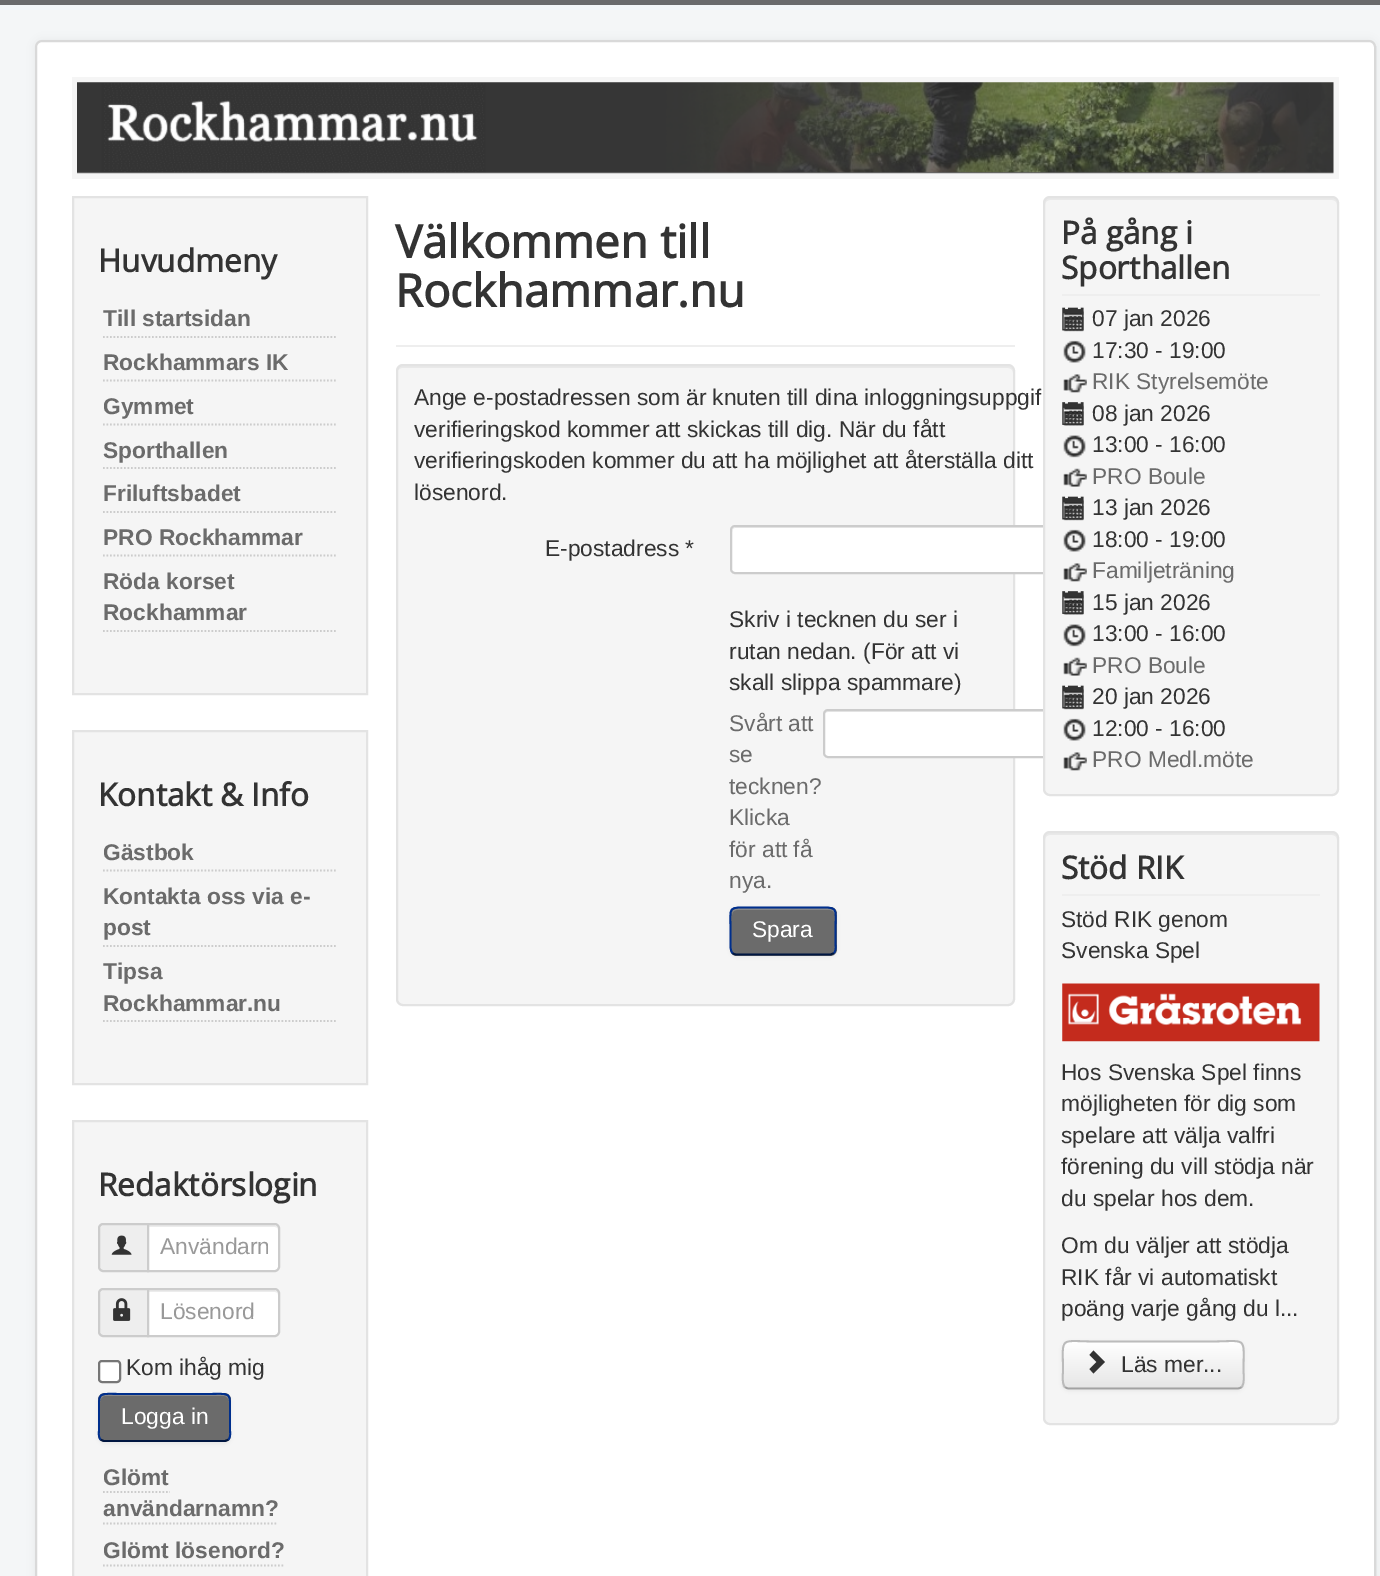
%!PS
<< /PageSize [1380 1576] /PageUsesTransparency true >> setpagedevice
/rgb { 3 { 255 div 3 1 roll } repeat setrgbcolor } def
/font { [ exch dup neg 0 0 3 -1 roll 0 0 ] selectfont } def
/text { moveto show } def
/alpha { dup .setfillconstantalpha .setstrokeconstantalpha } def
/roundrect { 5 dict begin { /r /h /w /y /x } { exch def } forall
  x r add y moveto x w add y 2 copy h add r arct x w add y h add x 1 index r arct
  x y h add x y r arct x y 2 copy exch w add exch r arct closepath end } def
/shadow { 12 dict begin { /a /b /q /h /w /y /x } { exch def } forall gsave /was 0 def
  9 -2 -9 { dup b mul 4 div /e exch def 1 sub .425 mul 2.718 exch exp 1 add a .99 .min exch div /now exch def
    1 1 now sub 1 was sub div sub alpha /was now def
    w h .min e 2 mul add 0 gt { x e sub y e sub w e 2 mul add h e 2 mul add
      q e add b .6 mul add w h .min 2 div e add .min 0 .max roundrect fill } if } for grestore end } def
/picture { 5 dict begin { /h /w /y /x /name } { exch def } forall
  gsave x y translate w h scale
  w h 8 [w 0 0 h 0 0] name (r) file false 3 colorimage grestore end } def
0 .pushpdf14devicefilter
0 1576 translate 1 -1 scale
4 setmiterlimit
244 246 247 rgb
0 0 1380 1576 rectfill
107 107 107 rgb
0 0 1380 5 rectfill
0 0 0 rgb
35 40 1341 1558 7 5 0.05 shadow
255 255 255 rgb
35 40 1341 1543 7 roundrect fill
0.15 alpha
0 0 0 rgb
2 setlinewidth
36 41 1339 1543 6 roundrect stroke
1 alpha
245 245 245 rgb
72 77 1267 102 rectfill
(img_01.rgb) 77 82 1257 92 picture
73 197 moveto 294 0 rlineto 0 497 rlineto -294 0 rlineto closepath gsave fill grestore
227 227 227 rgb
stroke
204 204 204 rgb
1.8 setlinewidth
[1.75 1.75] 0 setdash
103 337 moveto 233 0 rlineto stroke
103 380.5 moveto 233 0 rlineto stroke
103 424.5 moveto 233 0 rlineto stroke
103 468 moveto 233 0 rlineto stroke
103 512 moveto 233 0 rlineto stroke
103 555.5 moveto 233 0 rlineto stroke
103 631 moveto 233 0 rlineto stroke
245 245 245 rgb
73 731 moveto 294 0 rlineto 0 353 rlineto -294 0 rlineto closepath gsave fill grestore
227 227 227 rgb
2 setlinewidth
[] 0 setdash
stroke
204 204 204 rgb
1.8 setlinewidth
[1.75 1.75] 0 setdash
103 870.5 moveto 233 0 rlineto stroke
103 946 moveto 233 0 rlineto stroke
103 1021 moveto 233 0 rlineto stroke
245 245 245 rgb
73 1121 moveto 294 0 rlineto 0 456 rlineto -294 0 rlineto closepath gsave fill grestore
227 227 227 rgb
2 setlinewidth
[] 0 setdash
stroke
238 238 238 rgb
103 1224 moveto 45 0 rlineto 0 47 rlineto -45 0 rlineto -2 0 -4 -2 -4 -4 rcurveto 0 -39 rlineto 0 -2 2 -4 4 -4 rcurveto closepath gsave fill grestore
204 204 204 rgb
stroke
(img_02.rgb) 111 1235 21 20 picture
255 255 255 rgb
147 1223 moveto 128 0 rlineto 3 0 5 2 5 5 rcurveto 0 39 rlineto 0 3 -2 5 -5 5 rcurveto -128 0 rlineto closepath fill
236 236 236 rgb
149 1227 moveto 126 0 rlineto 2 0 3 1 3 3 rcurveto 0 -1 rlineto 0 -2 -2 -4 -4 -4 rcurveto -125 0 rlineto closepath fill
204 204 204 rgb
148 1224 moveto 127 0 rlineto 2 0 4 2 4 4 rcurveto 0 39 rlineto 0 2 -2 4 -4 4 rcurveto -127 0 rlineto closepath stroke
238 238 238 rgb
103 1289 moveto 45 0 rlineto 0 47 rlineto -45 0 rlineto -2 0 -4 -2 -4 -4 rcurveto 0 -39 rlineto 0 -2 2 -4 4 -4 rcurveto closepath gsave fill grestore
204 204 204 rgb
stroke
(img_03.rgb) 113 1298 18 23 picture
255 255 255 rgb
147 1288 moveto 128 0 rlineto 3 0 5 2 5 5 rcurveto 0 39 rlineto 0 3 -2 5 -5 5 rcurveto -128 0 rlineto closepath fill
236 236 236 rgb
149 1292 moveto 126 0 rlineto 2 0 3 1 3 3 rcurveto 0 -1 rlineto 0 -2 -2 -4 -4 -4 rcurveto -125 0 rlineto closepath fill
204 204 204 rgb
148 1289 moveto 127 0 rlineto 2 0 4 2 4 4 rcurveto 0 39 rlineto 0 2 -2 4 -4 4 rcurveto -127 0 rlineto closepath stroke
255 255 255 rgb
99 1361 21 21 3 roundrect gsave fill grestore
118 118 118 rgb
stroke
0 0 0 rgb
98 1395 133 49 7 2 0.05 shadow
107 107 107 rgb
98 1393 133 49 7 roundrect fill
137 137 137 rgb
105 1396 moveto 119 0 rlineto 3 0 5 3 5 6 rcurveto 0 -2 rlineto 0 -3 -2 -5 -5 -5 rcurveto -119 0 rlineto -3 0 -5 2 -5 5 rcurveto 0 2 rlineto 0 -3 2 -6 5 -6 rcurveto closepath fill
0 22 65 rgb
1.8 setlinewidth
228.5 1439.5 moveto -1.5 1 -3 1.5 -4.5 1.5 rcurveto -119 0 rlineto -1.5 0 -3 -0.5 -4.5 -1.5 rcurveto stroke
0 47 141 rgb
100.5 1439.5 moveto -2.5 -3 -1.5 -7 -1.5 -10.5 rcurveto 0 -11.5 rlineto 0 -27.5 -3.5 -23.5 26 -23.5 rcurveto 79 0 rlineto 29.5 0 26 -4 26 23.5 rcurveto 0 11.5 rlineto 0 3.5 1 7.5 -1.5 10.5 rcurveto stroke
204 204 204 rgb
[1.75 1.75] 0 setdash
103 1492 moveto 67 0 rlineto stroke
103 1523.5 moveto 175 0 rlineto stroke
103 1565.5 moveto 182 0 rlineto stroke
238 238 238 rgb
396 345 619 2 rectfill
245 245 245 rgb
396 364 619 642 7 roundrect fill
233 233 233 rgb
402 368 moveto 606 0 rlineto 3 0 5 2 5 5 rcurveto 0 -3 -1 -7 -5 -7 rcurveto -606 0 rlineto -4 0 -5 4 -5 7 rcurveto 0 -3 3 -5 5 -5 rcurveto closepath fill
227 227 227 rgb
2 setlinewidth
[] 0 setdash
397 365 617 640 6 roundrect stroke
255 255 255 rgb
730 525 385 49 5 roundrect fill
236 236 236 rgb
735 528 moveto 375 0 rlineto 1 0 3 2 3 4 rcurveto 0 -3 -1 -5 -4 -5 rcurveto -373 0 rlineto -3 0 -4 2 -4 5 rcurveto 0 -2 1 -4 3 -4 rcurveto closepath fill
204 204 204 rgb
731 526 383 47 4 roundrect stroke
255 255 255 rgb
823 709 385 49 5 roundrect fill
236 236 236 rgb
828 712 moveto 374 0 rlineto 2 0 4 2 4 4 rcurveto 0 -3 -1 -5 -4 -5 rcurveto -374 0 rlineto -3 0 -4 2 -4 5 rcurveto 0 -2 2 -4 4 -4 rcurveto closepath fill
204 204 204 rgb
824 710 383 47 4 roundrect stroke
0 0 0 rgb
730 908 107 49 7 2 0.05 shadow
107 107 107 rgb
730 907 107 49 7 roundrect fill
137 137 137 rgb
737 910 moveto 93 0 rlineto 2 0 5 2 5 5 rcurveto 0 -11 -12 -7 -21 -7 rcurveto -62 0 rlineto -8 0 -20 -4 -20 7 rcurveto 0 -3 2 -5 5 -5 rcurveto closepath fill
0 22 65 rgb
1.8 setlinewidth
834 953 moveto -1.5 1 -3 1.5 -4.5 1.5 rcurveto -92.5 0 rlineto -2 0 -3.5 -0.5 -4.5 -1.5 rcurveto stroke
0 47 141 rgb
732.5 953 moveto -2.5 -3 -2 -7 -2 -10.5 rcurveto 0 -11.5 rlineto 0 -25.5 -4 -23.5 21.5 -23.5 rcurveto 62 0 rlineto 25.5 0 21.5 -2 21.5 23.5 rcurveto 0 11.5 rlineto 0 3.5 1 7.5 -1.5 10.5 rcurveto stroke
245 245 245 rgb
1043 196 296 600 7 roundrect fill
233 233 233 rgb
1050 200 moveto 282 0 rlineto 3 0 5 2 5 5 rcurveto 0 -3 -1 -7 -5 -7 rcurveto -283 0 rlineto -4 1 -4 4 -4 7 rcurveto 0 -3 2 -5 5 -5 rcurveto closepath fill
227 227 227 rgb
2 setlinewidth
1044 197 294 598 6 roundrect stroke
238 238 238 rgb
1062 294 258 2 rectfill
(img_04.rgb) 1063 309 21 23 picture
(img_05.rgb) 1062 307 22 24 picture
(img_06.rgb) 1063 340 23 23 picture
(img_07.rgb) 1063 374 24 19 picture
(img_08.rgb) 1063 403 21 23 picture
(img_09.rgb) 1062 402 22 23 picture
(img_10.rgb) 1063 435 23 23 picture
(img_11.rgb) 1063 468 24 19 picture
(img_04.rgb) 1063 498 21 23 picture
(img_05.rgb) 1062 496 22 24 picture
(img_06.rgb) 1063 529 23 23 picture
(img_07.rgb) 1063 563 24 19 picture
(img_08.rgb) 1063 592 21 23 picture
(img_09.rgb) 1062 591 22 23 picture
(img_10.rgb) 1063 624 23 23 picture
(img_11.rgb) 1063 657 24 19 picture
(img_04.rgb) 1063 687 21 23 picture
(img_05.rgb) 1062 685 22 24 picture
(img_06.rgb) 1063 718 23 23 picture
(img_07.rgb) 1063 752 24 19 picture
245 245 245 rgb
1043 831 296 594 7 roundrect fill
233 233 233 rgb
1050 835 moveto 282 0 rlineto 3 0 5 2 5 5 rcurveto 0 -3 -1 -7 -5 -7 rcurveto -283 0 rlineto -4 1 -4 4 -4 7 rcurveto 0 -3 2 -5 5 -5 rcurveto closepath fill
227 227 227 rgb
1044 832 294 592 6 roundrect stroke
238 238 238 rgb
1062 894 258 2 rectfill
(img_12.rgb) 1062 983 258 59 picture
0 0 0 rgb
1062 1342 182 49 7 2 0.05 shadow
245 245 245 rgb
1062 1341 182 49 7 roundrect fill
gsave
1062 1341 182 49 7 roundrect clip newpath
gsave 1062 1342 moveto 182 0 rlineto 0 46 rlineto -182 0 rlineto closepath clip newpath
<< /ShadingType 2 /ColorSpace /DeviceRGB /Coords [1153 1342 1153 1388] /Extend [true true] /Function << /FunctionType 2 /Domain [0 1] /C0 [1 1 1] /C1 [0.902 0.902 0.902] /N 1 >> >> shfill grestore
grestore
0.2 alpha
255 255 255 rgb
1069 1344 moveto 168 0 rlineto 3 0 5 2 5 5 rcurveto 0 35 rlineto 0 3 rlineto 0 -1 1 -3 1 -4 rcurveto 0 -36 rlineto 0 -3 -2 -5 -5 -5 rcurveto -169 0 rlineto -3 0 -5 2 -5 5 rcurveto 0 2 rlineto 0 -3 2 -5 5 -5 rcurveto closepath fill
1 alpha
162 162 162 rgb
1.8 setlinewidth
1241.5 1387 moveto -1 1 -2.5 1.5 -4.5 1.5 rcurveto -168 0 rlineto -1.5 0 -3 -0.5 -4 -1.5 rcurveto stroke
187 187 187 rgb
1065 1387 moveto -3.5 -3.5 -2 -12.5 -2 -16 rcurveto 0 -36 -5 -29.5 34 -29.5 rcurveto 112 0 rlineto 39.5 0 34.5 -6.5 34.5 29.5 rcurveto 0 3.5 1.5 12.5 -2 16 rcurveto stroke
51 51 51 rgb
1093.5 1350.5 moveto 11.5 11.5 rlineto -11.5 11.5 rlineto -4 -4.5 rlineto 7 -7 rlineto -7 -7 rlineto closepath fill
/OpenSans-Bold 31.5 font
(Huvudmeny) 98 272 text
/LiberationSans-Bold 22.75 font
107 107 107 rgb
(Till startsidan) 103 326 text
(Rockhammars IK) 103 370 text
(Gymmet) 103 414 text
(Sporthallen) 103 458 text
(Friluftsbadet) 103 501 text
(PRO Rockhammar) 103 545 text
(Röda korset) 103 589 text
(Rockhammar) 103 620 text
/OpenSans-Bold 31.5 font
51 51 51 rgb
(Kontakt & Info) 98 806 text
/LiberationSans-Bold 22.75 font
107 107 107 rgb
(Gästbok) 103 860 text
(Kontakta oss via e-) 103 904 text
(post) 103 935 text
(Tipsa) 103 979 text
(Rockhammar.nu) 103 1011 text
/OpenSans-Bold 31.5 font
51 51 51 rgb
(Redaktörslogin) 98 1196 text
gsave
159 1234 109 26 rectclip
/LiberationSans-Regular 22.75 font
153 153 153 rgb
(Användarn) 160 1254 text
grestore
/LiberationSans-Regular 22.75 font
153 153 153 rgb
(Lösenord) 160 1319 text
51 51 51 rgb
(Kom ihåg mig) 126 1375 text
255 255 255 rgb
(Logga in) 121 1424 text
/LiberationSans-Bold 22.75 font
107 107 107 rgb
(Glömt) 103 1485 text
(användarnamn?) 103 1516 text
(Glömt lösenord?) 103 1558 text
/OpenSans-Bold 45.5 font
51 51 51 rgb
(Välkommen till) 395 258 text
(Rockhammar.nu) 395 307 text
/LiberationSans-Regular 22.75 font
(Ange e-postadressen som är knuten till dina inloggningsuppgif) 414 405 text
(verifieringskod kommer att skickas till dig. När du fått) 414 437 text
(verifieringskoden kommer du att ha möjlighet att återställa ditt) 414 468 text
(lösenord.) 414 500 text
(E-postadress *) 545 556 text
(Skriv i tecknen du ser i) 729 627 text
(rutan nedan. \(För att vi) 729 659 text
(skall slippa spammare\)) 729 690 text
107 107 107 rgb
(Svårt att) 729 731 text
(se) 729 762 text
(tecknen?) 729 794 text
(Klicka) 729 825 text
(för att få) 729 857 text
(nya.) 729 888 text
255 255 255 rgb
(Spara) 752 937 text
/OpenSans-Bold 31.5 font
51 51 51 rgb
(På gång i) 1061 244 text
(Sporthallen) 1061 279 text
/LiberationSans-Regular 22.75 font
(07 jan 2026) 1092 326 text
(17:30 - 19:00) 1092 358 text
107 107 107 rgb
(RIK Styrelsemöte) 1092 389 text
51 51 51 rgb
(08 jan 2026) 1092 421 text
(13:00 - 16:00) 1092 452 text
107 107 107 rgb
(PRO Boule) 1092 484 text
51 51 51 rgb
(13 jan 2026) 1092 515 text
(18:00 - 19:00) 1092 547 text
107 107 107 rgb
(Familjeträning) 1092 578 text
51 51 51 rgb
(15 jan 2026) 1092 610 text
(13:00 - 16:00) 1092 641 text
107 107 107 rgb
(PRO Boule) 1092 673 text
51 51 51 rgb
(20 jan 2026) 1092 704 text
(12:00 - 16:00) 1092 736 text
107 107 107 rgb
(PRO Medl.möte) 1092 767 text
/OpenSans-Bold 31.5 font
51 51 51 rgb
(Stöd RIK) 1061 879 text
/LiberationSans-Regular 22.75 font
(Stöd RIK genom) 1061 927 text
(Svenska Spel) 1061 958 text
(Hos Svenska Spel finns) 1061 1080 text
(möjligheten för dig som) 1061 1111 text
(spelare att välja valfri) 1061 1143 text
(förening du vill stödja när) 1061 1174 text
(du spelar hos dem.) 1061 1206 text
(Om du väljer att stödja) 1061 1253 text
(RIK får vi automatiskt) 1061 1285 text
(poäng varje gång du l...) 1061 1316 text
(Läs mer...) 1121 1372 text
.poppdf14devicefilter showpage
